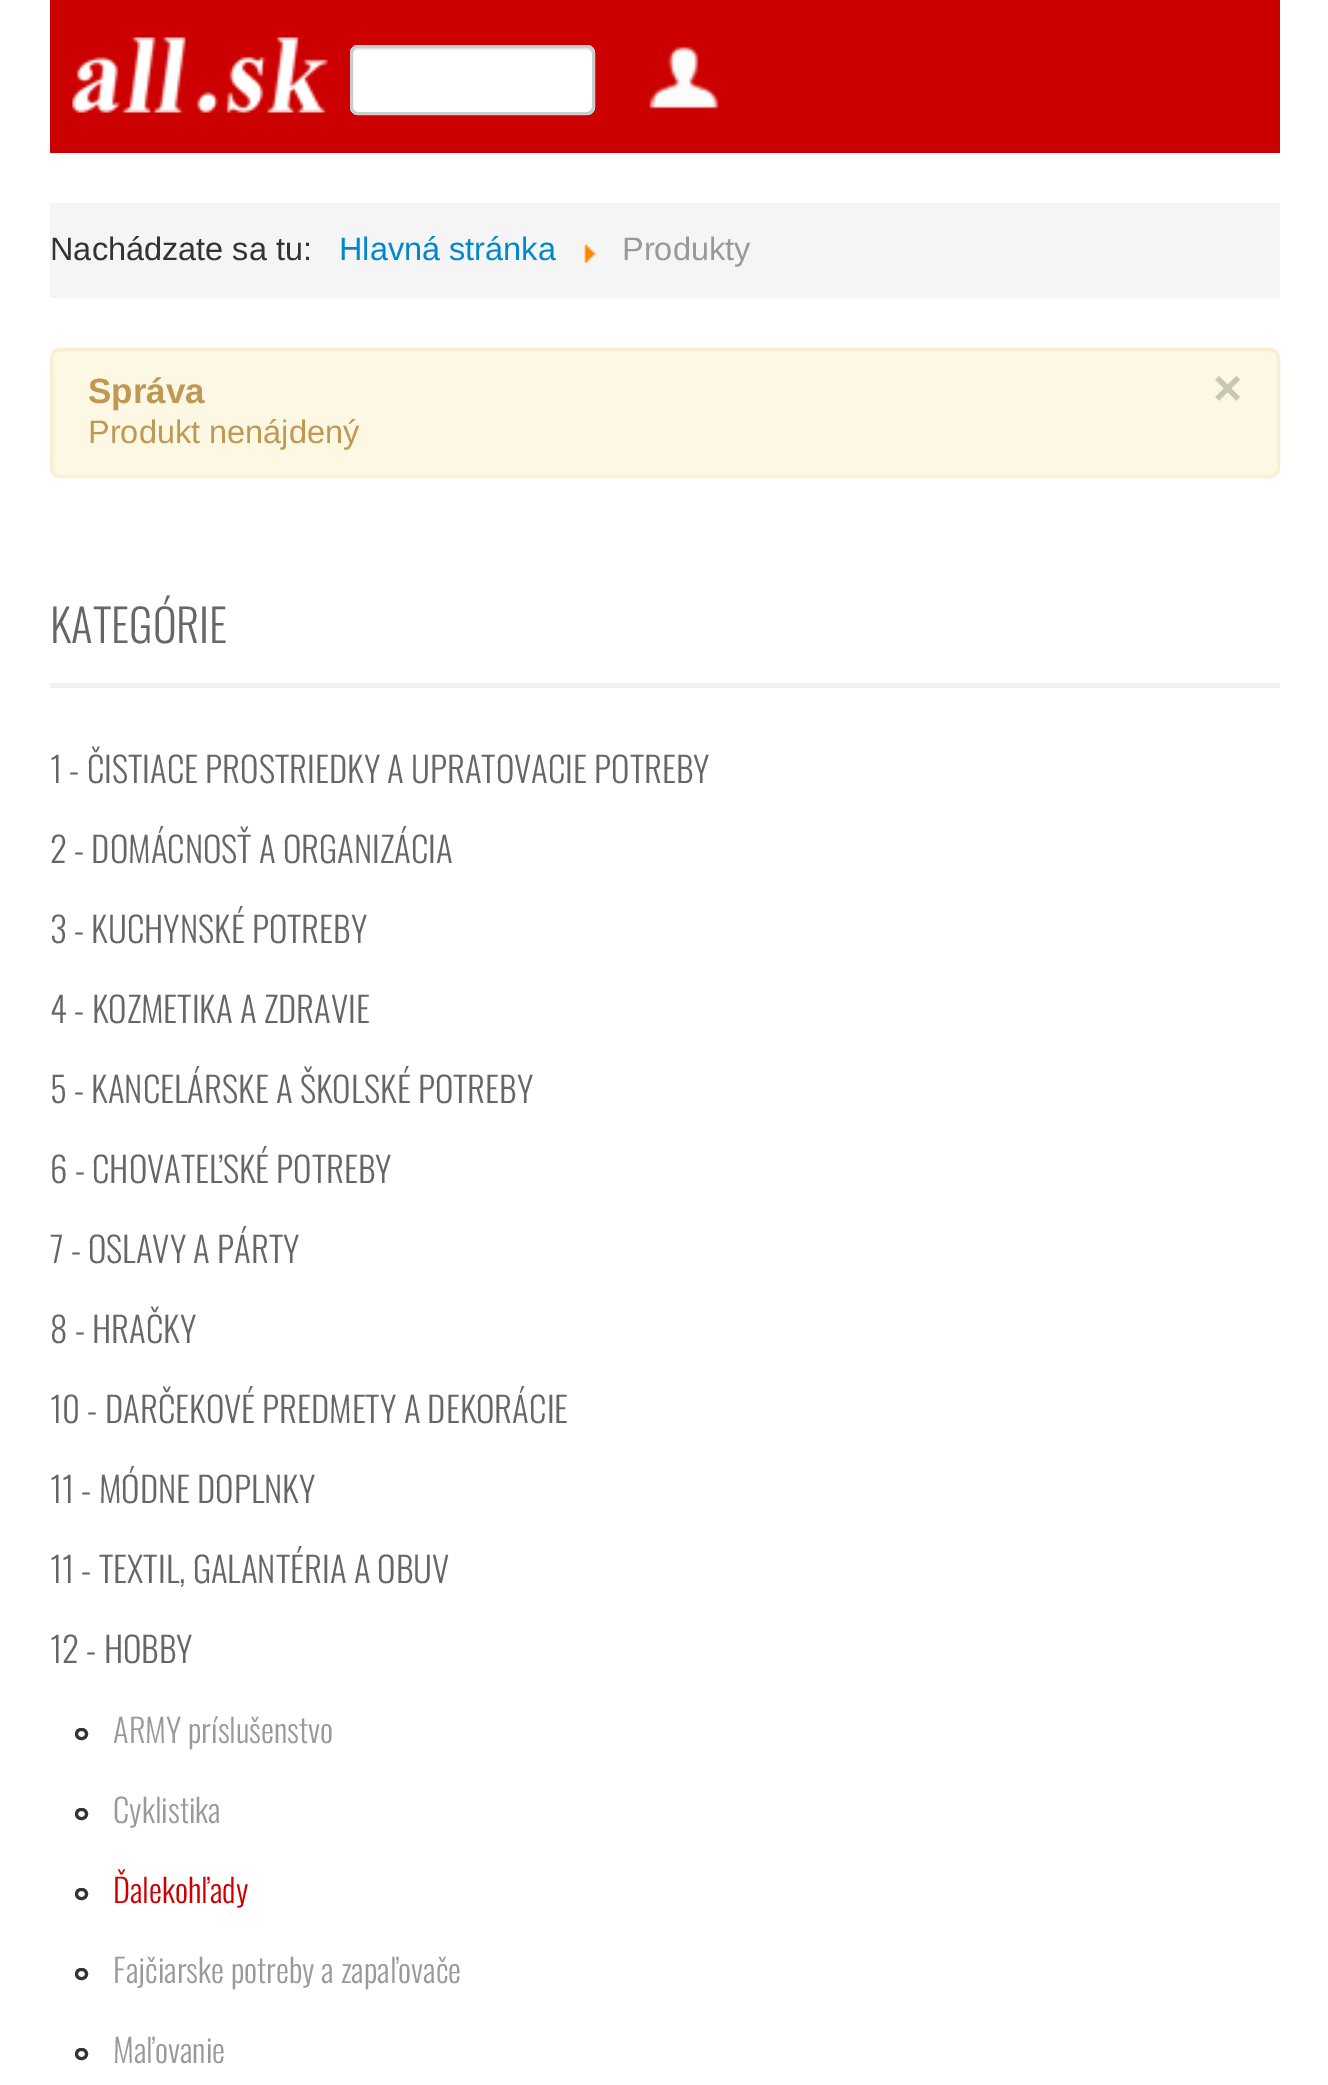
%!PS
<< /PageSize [1328 2085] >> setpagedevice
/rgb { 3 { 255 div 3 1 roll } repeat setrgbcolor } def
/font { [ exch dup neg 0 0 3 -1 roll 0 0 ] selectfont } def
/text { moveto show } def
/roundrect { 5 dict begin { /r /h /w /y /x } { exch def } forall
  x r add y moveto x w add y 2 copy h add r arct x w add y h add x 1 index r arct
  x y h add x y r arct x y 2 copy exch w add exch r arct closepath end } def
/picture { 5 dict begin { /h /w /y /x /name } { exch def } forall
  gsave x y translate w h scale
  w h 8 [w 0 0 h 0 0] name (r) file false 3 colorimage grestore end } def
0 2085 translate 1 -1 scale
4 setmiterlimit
255 255 255 rgb
0 0 1328 2085 rectfill
204 0 0 rgb
50 0 1230 153 rectfill
(img_01.rgb) 72 37 256 76 picture
255 255 255 rgb
350 45 245 70 8 roundrect fill
236 236 236 rgb
358 50 moveto 230 0 rlineto 2 0 4 2 4 5 rcurveto 0 56 rlineto 1 -1 1 -2 1 -3 rcurveto 0 -55 rlineto 0 -3 -2 -5 -5 -5 rcurveto -230 0 rlineto -2 0 -5 2 -5 4 rcurveto 1 -1 3 -2 5 -2 rcurveto closepath fill
204 204 204 rgb
3 setlinewidth
351.5 46.5 242 67 6.5 roundrect stroke
(img_02.rgb) 649 46 70 63 picture
245 245 245 rgb
50 203 1230 95 rectfill
(img_03.rgb) 584 244 12 19 picture
252 248 227 rgb
51.5 349.5 1227 127 8.5 roundrect gsave fill grestore
251 238 213 rgb
stroke
242 242 242 rgb
50 683 1230 5 rectfill
51 51 51 rgb
76.5 1729.5 10 9 4.5 roundrect stroke
76.5 1809.5 10 9 4.5 roundrect stroke
76.5 1889.5 10 9 4.5 roundrect stroke
76.5 1969.5 10 9 4.5 roundrect stroke
76.5 2049.5 10 9 4.5 roundrect stroke
/LiberationSans-Regular 32.5 font
(Nachádzate sa tu:) 50 260 text
0 136 204 rgb
(Hlavná stránka) 339 260 text
153 153 153 rgb
(Produkty) 622 260 text
/LiberationSans-Bold 35 font
192 152 83 rgb
(Správa) 88 403 text
/LiberationSans-Bold 50 font
202 198 182 rgb
(×) 1213 405 text
/LiberationSans-Regular 32.5 font
192 152 83 rgb
(Produkt nenájdený) 88 443 text
/Oswald-Light 45 font
102 102 102 rgb
(KATEGÓRIE) 50 643 text
/Oswald-Light 35 font
(1 - ČISTIACE PROSTRIEDKY A UPRATOVACIE POTREBY) 50 783 text
(2 - DOMÁCNOSŤ A ORGANIZÁCIA) 50 863 text
(3 - KUCHYNSKÉ POTREBY) 50 943 text
(4 - KOZMETIKA A ZDRAVIE) 50 1023 text
(5 - KANCELÁRSKE A ŠKOLSKÉ POTREBY) 50 1103 text
(6 - CHOVATEĽSKÉ POTREBY) 50 1183 text
(7 - OSLAVY A PÁRTY) 50 1263 text
(8 - HRAČKY) 50 1343 text
(10 - DARČEKOVÉ PREDMETY A DEKORÁCIE) 50 1423 text
(11 - MÓDNE DOPLNKY) 50 1503 text
(11 - TEXTIL, GALANTÉRIA A OBUV) 50 1583 text
(12 - HOBBY) 50 1663 text
/Oswald-Light 32.5 font
153 153 153 rgb
(ARMY príslušenstvo) 113 1743 text
(Cyklistika) 113 1823 text
204 0 0 rgb
(Ďalekohľady) 113 1903 text
153 153 153 rgb
(Fajčiarske potreby a zapaľovače) 113 1983 text
(Maľovanie) 113 2063 text
showpage
